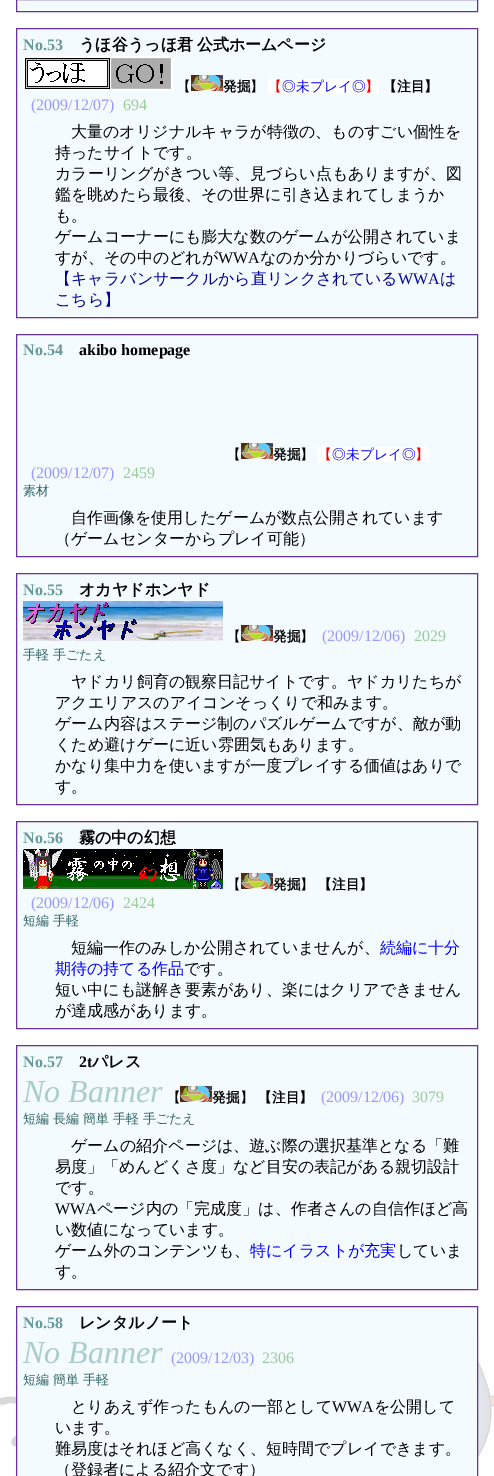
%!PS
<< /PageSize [494 1476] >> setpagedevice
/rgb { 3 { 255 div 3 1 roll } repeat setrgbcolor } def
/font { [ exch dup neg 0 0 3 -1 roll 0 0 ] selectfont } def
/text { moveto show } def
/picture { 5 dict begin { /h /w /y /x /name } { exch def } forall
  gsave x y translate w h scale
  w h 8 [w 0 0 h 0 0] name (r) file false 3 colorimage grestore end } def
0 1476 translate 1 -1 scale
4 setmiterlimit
255 255 255 rgb
0 0 494 1476 rectfill
(img_01.rgb) 0 1336 494 140 picture
244 251 255 rgb
16.5 -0.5 moveto 461 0 rlineto 0 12 rlineto -461 0 rlineto closepath gsave fill grestore
102 51 153 rgb
stroke
244 251 255 rgb
16.5 28.5 moveto 461 0 rlineto 0 289 rlineto -461 0 rlineto closepath gsave fill grestore
102 51 153 rgb
stroke
(img_02.rgb) 23 56 150 35 picture
(img_03.rgb) 191 75 32 16 picture
255 255 255 rgb
268 79 111 15 rectfill
244 251 255 rgb
16.5 334.5 moveto 461 0 rlineto 0 222 rlineto -461 0 rlineto closepath gsave fill grestore
102 51 153 rgb
stroke
(img_03.rgb) 241 443 32 16 picture
255 255 255 rgb
318 447 111 15 rectfill
244 251 255 rgb
16.5 573.5 moveto 461 0 rlineto 0 231 rlineto -461 0 rlineto closepath gsave fill grestore
102 51 153 rgb
stroke
(img_04.rgb) 23 601 200 40 picture
(img_03.rgb) 241 625 32 16 picture
244 251 255 rgb
16.5 821.5 moveto 461 0 rlineto 0 207 rlineto -461 0 rlineto closepath gsave fill grestore
102 51 153 rgb
stroke
(img_05.rgb) 23 849 200 40 picture
(img_03.rgb) 241 873 32 16 picture
244 251 255 rgb
16.5 1045.5 moveto 461 0 rlineto 0 244 rlineto -461 0 rlineto closepath gsave fill grestore
102 51 153 rgb
stroke
(img_03.rgb) 180 1086 32 16 picture
244 251 255 rgb
16.5 1306.5 moveto 461 0 rlineto 0 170 rlineto -461 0 rlineto closepath gsave fill grestore
102 51 153 rgb
stroke
/LiberationSerif-Bold 16 font
102 153 153 rgb
(No.53) 23 50 text
/WenQuanYiZenHei-Bold 16 font
0 0 0 rgb
79 50 moveto -1 0 32 (うほ谷うっほ君 公式ホームページ) widthshow
/WenQuanYiZenHei-Medium 13.75 font
(【) 177 91 text
/WenQuanYiZenHei-Bold 13.75 font
(発掘) 223 91 text
/WenQuanYiZenHei-Medium 13.75 font
(】) 250 91 text
255 0 0 rgb
(【) 268 91 text
0 0 255 rgb
(◎未プレイ◎) 282 91 text
255 0 0 rgb
(】) 365 91 text
/WenQuanYiZenHei-Bold 13.75 font
0 0 0 rgb
(【注目】) 383 91 text
/LiberationSerif-Regular 16 font
153 153 255 rgb
(\(2009/12/07\)) 31 110 text
153 204 153 rgb
(694) 123 110 text
/WenQuanYiZenHei-Medium 16 font
0 0 0 rgb
(大量のオリジナルキャラが特徴の、ものすごい個性を) 71 137 text
(持ったサイトです。) 55 158 text
(カラーリングがきつい等、見づらい点もありますが、図) 55 179 text
(鑑を眺めたら最後、その世界に引き込まれてしまうか) 55 200 text
(も。) 55 221 text
(ゲームコーナーにも膨大な数のゲームが公開されていま) 55 242 text
(すが、その中のどれが) 55 263 text
/LiberationSerif-Regular 16 font
(WWA) 218 263 text
/WenQuanYiZenHei-Medium 16 font
(なのか分かりづらいです。) 260 263 text
0 0 153 rgb
(【キャラバンサークルから直リンクされている) 55 284 text
/LiberationSerif-Regular 16 font
(WWA) 398 284 text
/WenQuanYiZenHei-Medium 16 font
(は) 440 284 text
(こちら】) 55 305 text
/LiberationSerif-Bold 16 font
102 153 153 rgb
(No.54) 23 355 text
0 0 0 rgb
(akibo homepage) 79 355 text
/WenQuanYiZenHei-Medium 13.75 font
(【) 227 459 text
/WenQuanYiZenHei-Bold 13.75 font
(発掘) 273 459 text
/WenQuanYiZenHei-Medium 13.75 font
(】) 300 459 text
255 0 0 rgb
(【) 318 459 text
0 0 255 rgb
(◎未プレイ◎) 332 459 text
255 0 0 rgb
(】) 415 459 text
/LiberationSerif-Regular 16 font
153 153 255 rgb
(\(2009/12/07\)) 31 478 text
153 204 153 rgb
(2459) 123 478 text
/WenQuanYiZenHei-Medium 13 font
51 102 102 rgb
(素材) 23 495 text
/WenQuanYiZenHei-Medium 16 font
0 0 0 rgb
(自作画像を使用したゲームが数点公開されています) 71 523 text
(（ゲームセンターからプレイ可能）) 55 544 text
/LiberationSerif-Bold 16 font
102 153 153 rgb
(No.55) 23 595 text
/WenQuanYiZenHei-Bold 16 font
0 0 0 rgb
(オカヤドホンヤド) 79 595 text
/WenQuanYiZenHei-Medium 13.75 font
(【) 227 641 text
/WenQuanYiZenHei-Bold 13.75 font
(発掘) 273 641 text
/WenQuanYiZenHei-Medium 13.75 font
(】) 300 641 text
/LiberationSerif-Regular 16 font
153 153 255 rgb
(\(2009/12/06\)) 322 641 text
153 204 153 rgb
(2029) 414 641 text
/WenQuanYiZenHei-Medium 13 font
51 102 102 rgb
(手軽 手ごたえ) 23 659 text
/WenQuanYiZenHei-Medium 16 font
0 0 0 rgb
(ヤドカリ飼育の観察日記サイトです。ヤドカリたちが) 71 687 text
(アクエリアスのアイコンそっくりで和みます。) 55 708 text
(ゲーム内容はステージ制のパズルゲームですが、敵が動) 55 729 text
(くため避けゲーに近い雰囲気もあります。) 55 750 text
(かなり集中力を使いますが一度プレイする価値はありで) 55 771 text
(す。) 55 792 text
/LiberationSerif-Bold 16 font
102 153 153 rgb
(No.56) 23 843 text
/WenQuanYiZenHei-Bold 16 font
0 0 0 rgb
(霧の中の幻想) 79 843 text
/WenQuanYiZenHei-Medium 13.75 font
(【) 227 889 text
/WenQuanYiZenHei-Bold 13.75 font
(発掘) 273 889 text
/WenQuanYiZenHei-Medium 13.75 font
(】) 300 889 text
/WenQuanYiZenHei-Bold 13.75 font
(【注目】) 318 889 text
/LiberationSerif-Regular 16 font
153 153 255 rgb
(\(2009/12/06\)) 31 908 text
153 204 153 rgb
(2424) 123 908 text
/WenQuanYiZenHei-Medium 13 font
51 102 102 rgb
(短編 手軽) 23 925 text
/WenQuanYiZenHei-Medium 16 font
0 0 0 rgb
(短編一作のみしか公開されていませんが、) 71 953 text
0 0 255 rgb
(続編に十分) 380 953 text
(期待の持てる作品) 55 974 text
0 0 0 rgb
(です。) 184 974 text
(短い中にも謎解き要素があり、楽にはクリアできません) 55 995 text
(が達成感があります。) 55 1016 text
/LiberationSerif-Bold 16 font
102 153 153 rgb
(No.57) 23 1067 text
0 0 0 rgb
(2t) 79 1067 text
/WenQuanYiZenHei-Bold 16 font
(パレス) 92 1067 text
/LiberationSerif-Italic 32 font
170 204 204 rgb
(No Banner) 23 1102 text
/WenQuanYiZenHei-Medium 13.75 font
0 0 0 rgb
(【) 167 1102 text
/WenQuanYiZenHei-Bold 13.75 font
(発掘) 212 1102 text
/WenQuanYiZenHei-Medium 13.75 font
(】) 240 1102 text
/WenQuanYiZenHei-Bold 13.75 font
(【注目】) 258 1102 text
/LiberationSerif-Regular 16 font
153 153 255 rgb
(\(2009/12/06\)) 321 1102 text
153 204 153 rgb
(3079) 412 1102 text
/WenQuanYiZenHei-Medium 13 font
51 102 102 rgb
(短編 長編 簡単 手軽 手ごたえ) 23 1123 text
/WenQuanYiZenHei-Medium 16 font
0 0 0 rgb
(ゲームの紹介ページは、遊ぶ際の選択基準となる「難) 71 1151 text
(易度」「めんどくさ度」など目安の表記がある親切設計) 55 1172 text
(です。) 55 1193 text
/LiberationSerif-Regular 16 font
(WWA) 55 1214 text
/WenQuanYiZenHei-Medium 16 font
(ページ内の「完成度」は、作者さんの自信作ほど高) 97 1214 text
(い数値になっています。) 55 1235 text
(ゲーム外のコンテンツも、) 55 1256 text
0 0 255 rgb
(特にイラストが充実) 250 1256 text
0 0 0 rgb
(していま) 397 1256 text
(す。) 55 1277 text
/LiberationSerif-Bold 16 font
102 153 153 rgb
(No.58) 23 1328 text
/WenQuanYiZenHei-Bold 16 font
0 0 0 rgb
(レンタルノート) 79 1328 text
/LiberationSerif-Italic 32 font
170 204 204 rgb
(No Banner) 23 1363 text
/LiberationSerif-Regular 16 font
153 153 255 rgb
(\(2009/12/03\)) 171 1363 text
153 204 153 rgb
(2306) 262 1363 text
/WenQuanYiZenHei-Medium 13 font
51 102 102 rgb
(短編 簡単 手軽) 23 1384 text
/WenQuanYiZenHei-Medium 16 font
0 0 0 rgb
(とりあえず作ったもんの一部として) 71 1412 text
/LiberationSerif-Regular 16 font
(WWA) 332 1412 text
/WenQuanYiZenHei-Medium 16 font
(を公開して) 374 1412 text
(います。) 55 1433 text
(難易度はそれほど高くなく、短時間でプレイできます。) 55 1454 text
(（登録者による紹介文です）) 55 1475 text
showpage
